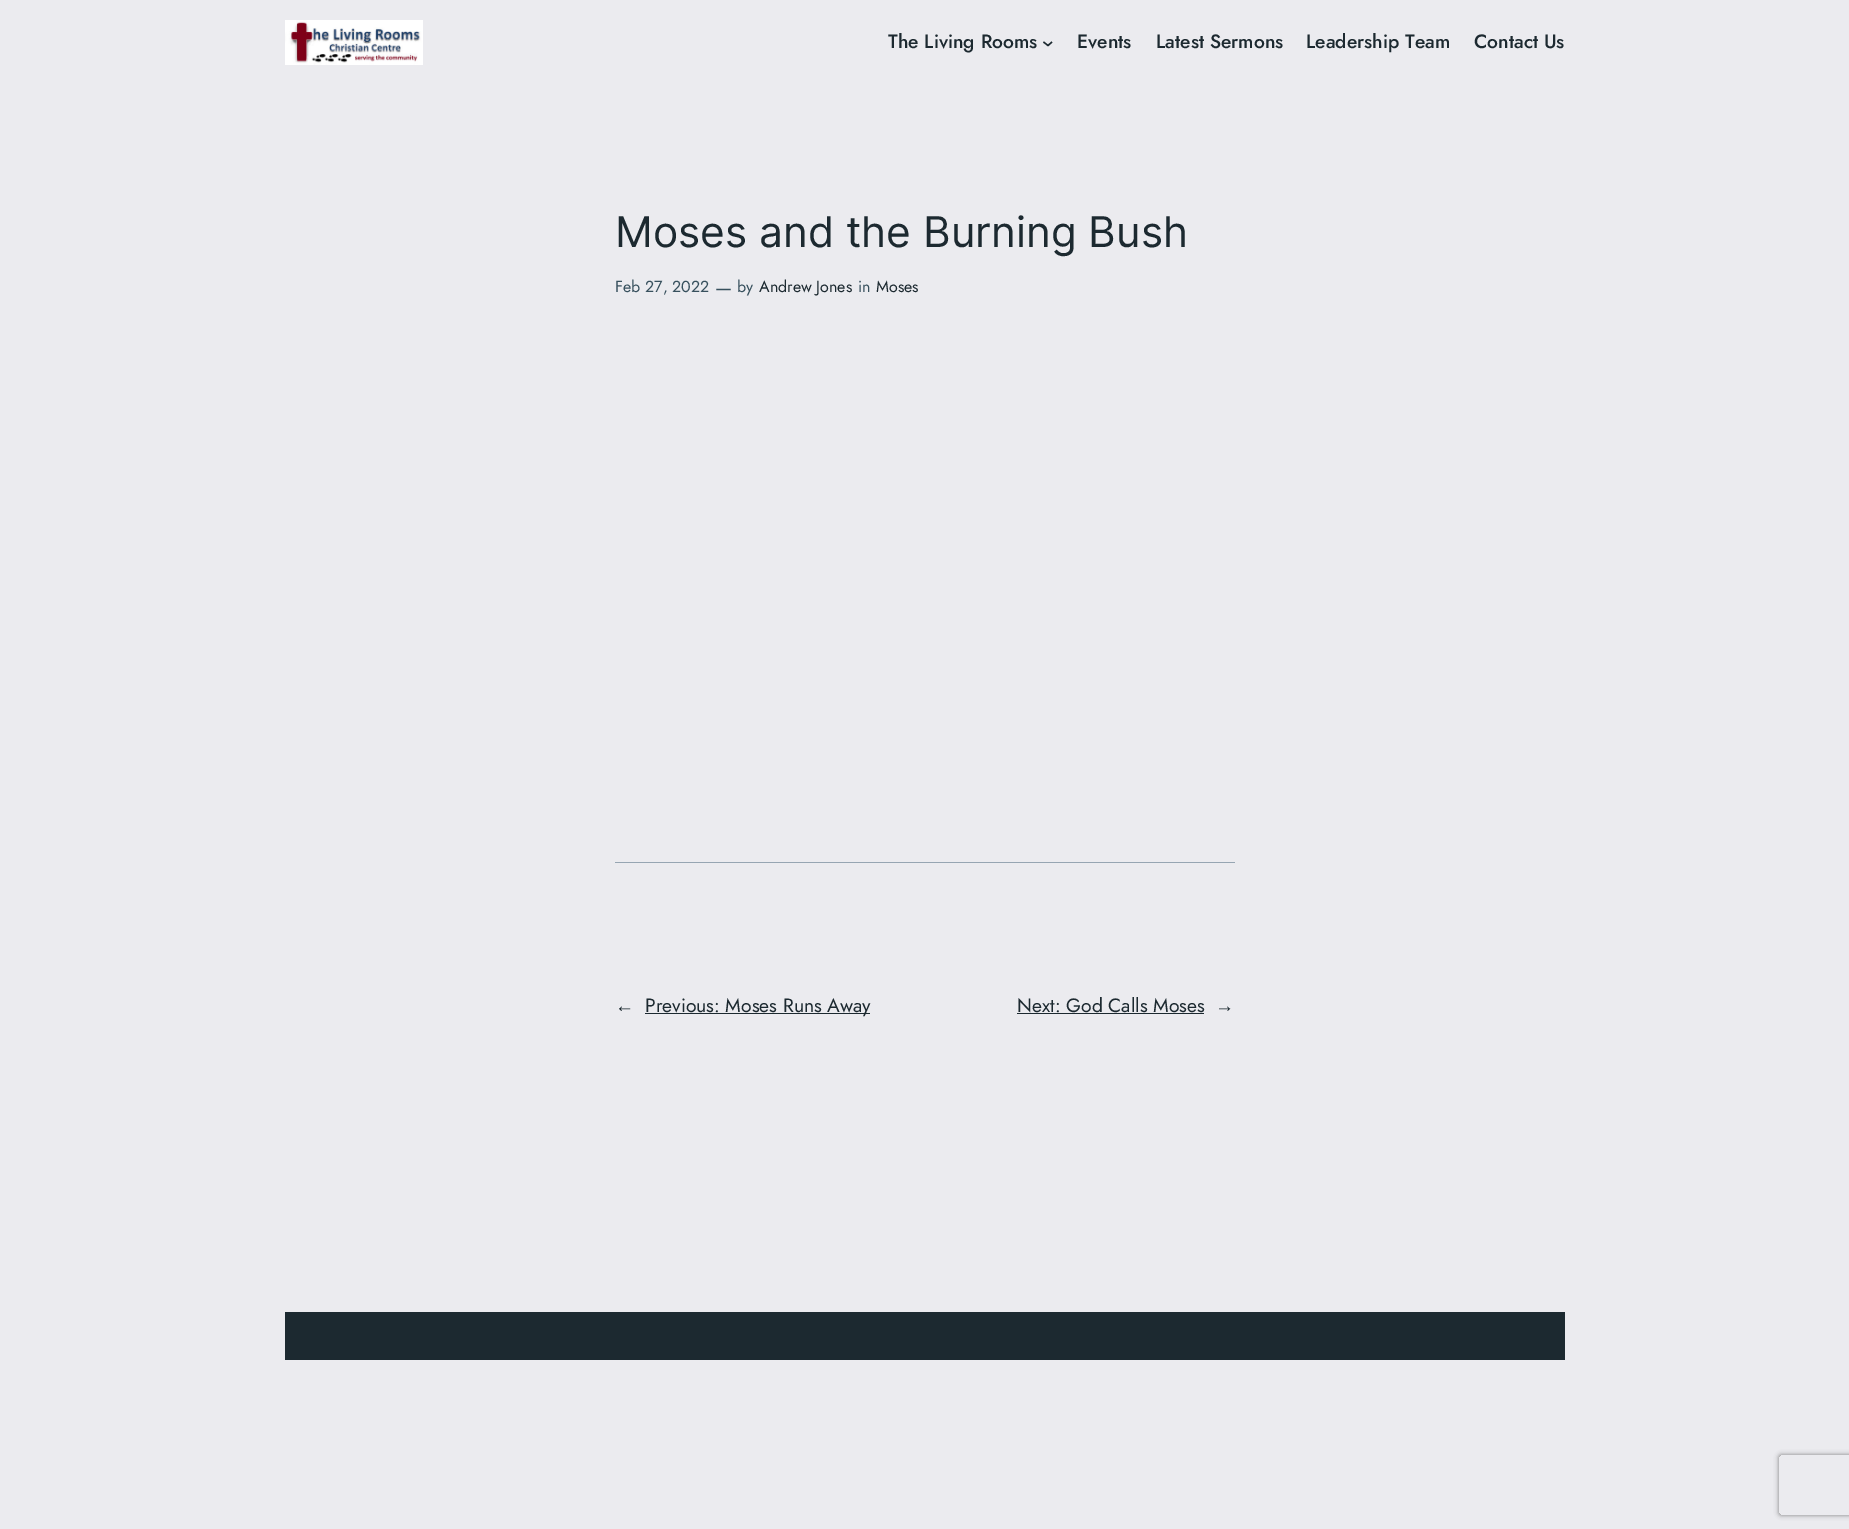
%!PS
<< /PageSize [1849 1529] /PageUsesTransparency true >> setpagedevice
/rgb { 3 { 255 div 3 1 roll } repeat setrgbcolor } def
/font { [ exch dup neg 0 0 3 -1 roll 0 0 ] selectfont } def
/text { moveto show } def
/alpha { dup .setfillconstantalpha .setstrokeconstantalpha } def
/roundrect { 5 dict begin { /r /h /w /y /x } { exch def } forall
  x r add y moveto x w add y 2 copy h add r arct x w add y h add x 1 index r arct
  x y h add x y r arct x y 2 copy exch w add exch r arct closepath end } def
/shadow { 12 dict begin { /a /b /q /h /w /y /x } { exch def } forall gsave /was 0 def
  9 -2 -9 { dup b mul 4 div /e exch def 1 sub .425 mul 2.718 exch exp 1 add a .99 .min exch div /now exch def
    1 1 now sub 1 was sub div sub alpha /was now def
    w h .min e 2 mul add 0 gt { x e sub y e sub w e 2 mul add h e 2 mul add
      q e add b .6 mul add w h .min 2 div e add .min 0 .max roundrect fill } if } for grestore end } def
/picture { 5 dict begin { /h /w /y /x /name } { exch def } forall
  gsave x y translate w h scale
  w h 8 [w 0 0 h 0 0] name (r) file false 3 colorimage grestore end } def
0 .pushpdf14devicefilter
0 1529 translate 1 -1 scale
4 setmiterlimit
235 235 239 rgb
0 0 1849 1529 rectfill
(img_01.rgb) 285 20 138 45 picture
28 41 48 rgb
1.4 setlinewidth
1043.5 42 moveto 4.5 3.5 rlineto 4 -3.5 rlineto stroke
150 165 178 rgb
615 862 620 1 rectfill
28 41 48 rgb
645 1013 225 1 rectfill
1017 1013 187 1 rectfill
285 1312 1280 48 rectfill
gsave
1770 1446 moveto 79 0 rlineto 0 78 rlineto -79 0 rlineto closepath 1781 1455 moveto 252 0 rlineto 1 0 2 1 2 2 rcurveto 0 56 rlineto 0 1 -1 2 -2 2 rcurveto -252 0 rlineto -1 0 -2 -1 -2 -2 rcurveto 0 -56 rlineto 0 -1 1 -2 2 -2 rcurveto closepath eoclip newpath
128 128 128 rgb
1779 1455 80 60 2 2.5 1 shadow
grestore
/Jost-Medium 19.25 font
(The Living Rooms) 888 48 text
(Events) 1077 48 text
(Latest Sermons) 1156 48 text
(Leadership Team) 1306 48 text
(Contact Us) 1474 48 text
/Inter-Regular 42.4 font
(Moses and the Burning Bush) 615 247 text
/Jost-Regular 16 font
55 80 93 rgb
(Feb 27, 2022) 615 292 text
/Jost-Regular 19.25 font
(—) 715 294 text
/Jost-Regular 16 font
(by) 737 292 text
28 41 48 rgb
(Andrew Jones) 759 292 text
55 80 93 rgb
(in) 858 292 text
28 41 48 rgb
(Moses) 876 292 text
/LiberationSans-Regular 19.25 font
(←) 615 1012 text
/Jost-Regular 19.25 font
(Previous: Moses Runs Away) 645 1012 text
(Next: God Calls Moses) 1017 1012 text
/LiberationSans-Regular 19.25 font
(→) 1215 1012 text
.poppdf14devicefilter showpage
